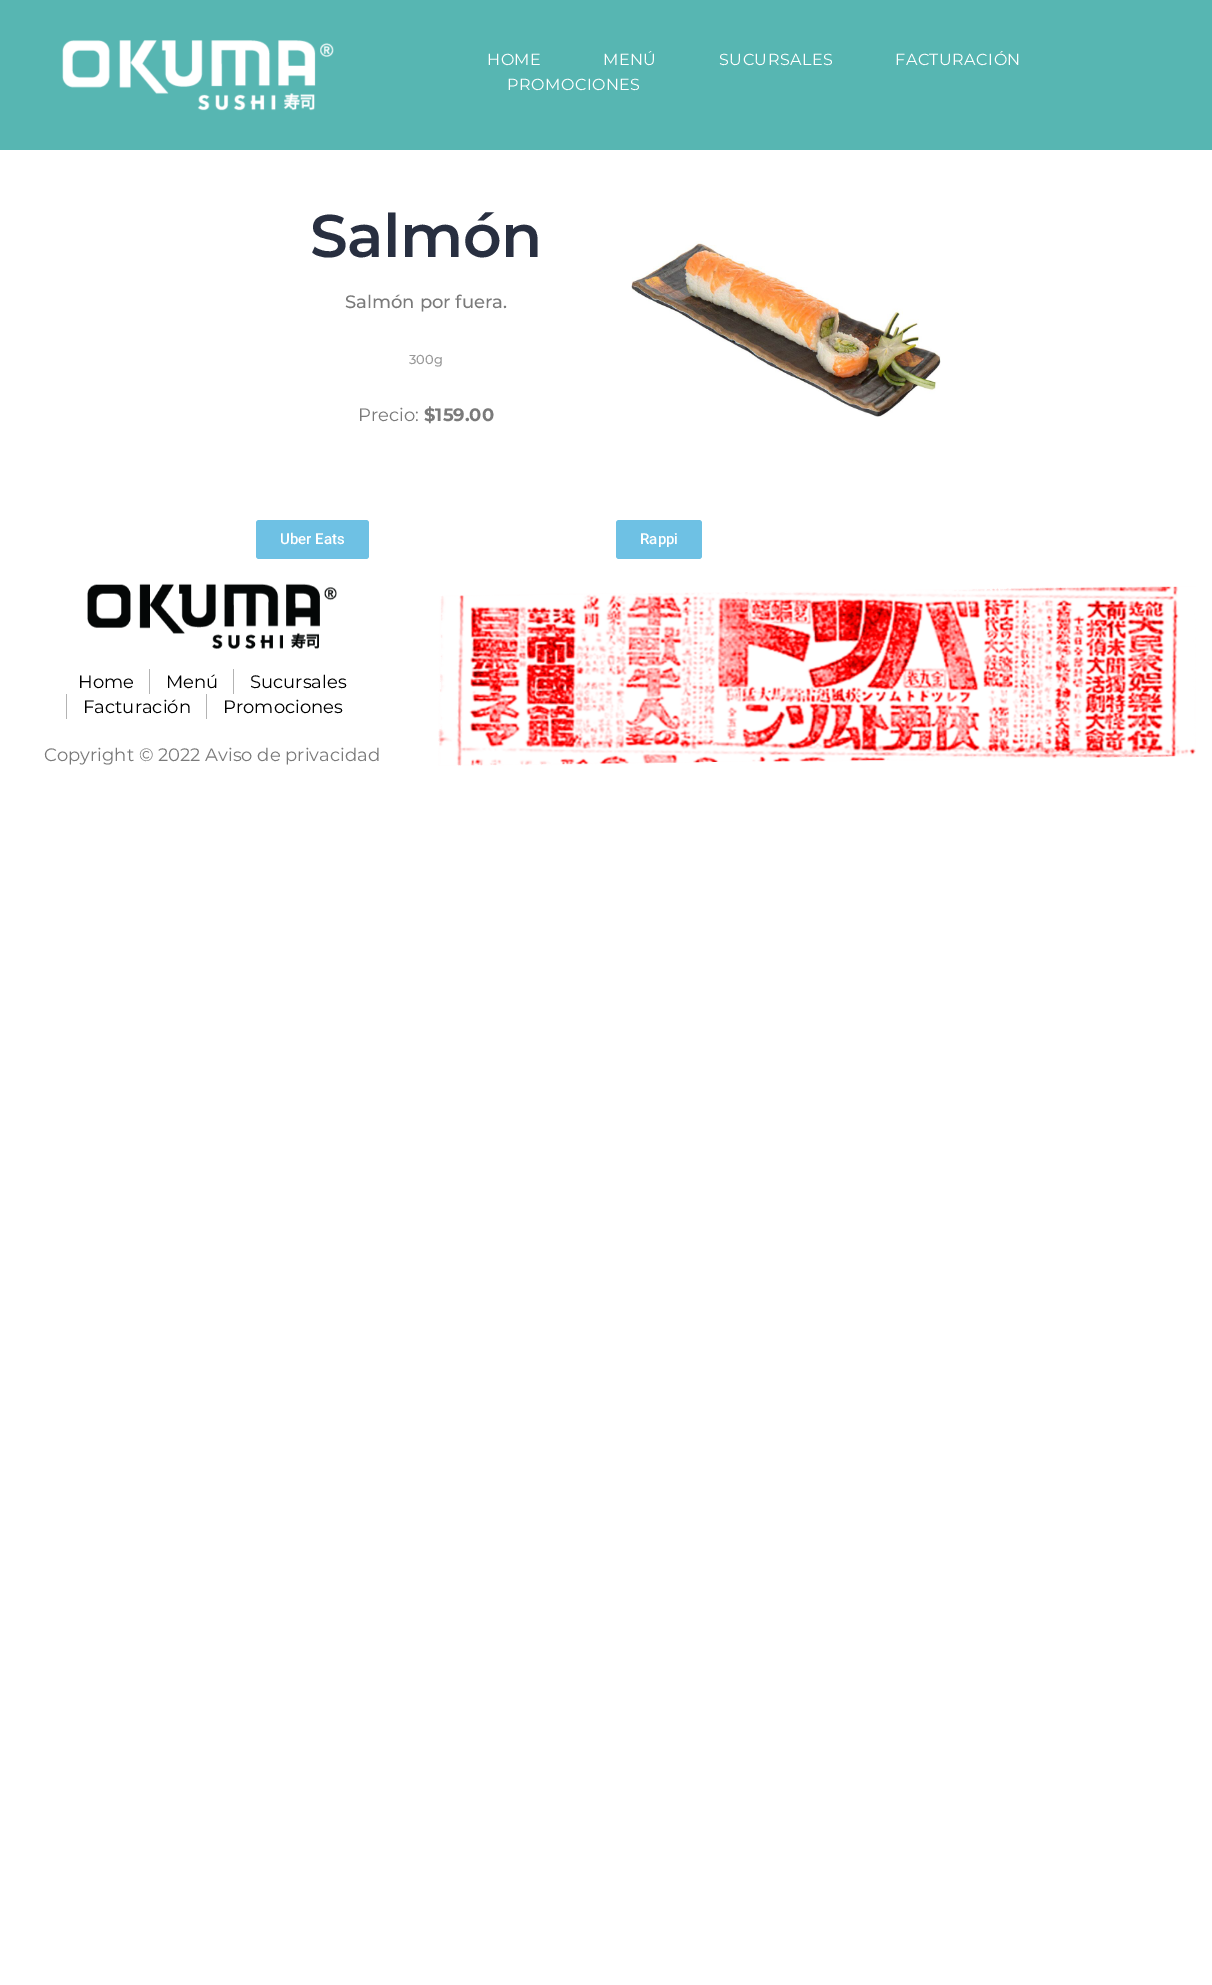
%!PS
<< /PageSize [1212 1985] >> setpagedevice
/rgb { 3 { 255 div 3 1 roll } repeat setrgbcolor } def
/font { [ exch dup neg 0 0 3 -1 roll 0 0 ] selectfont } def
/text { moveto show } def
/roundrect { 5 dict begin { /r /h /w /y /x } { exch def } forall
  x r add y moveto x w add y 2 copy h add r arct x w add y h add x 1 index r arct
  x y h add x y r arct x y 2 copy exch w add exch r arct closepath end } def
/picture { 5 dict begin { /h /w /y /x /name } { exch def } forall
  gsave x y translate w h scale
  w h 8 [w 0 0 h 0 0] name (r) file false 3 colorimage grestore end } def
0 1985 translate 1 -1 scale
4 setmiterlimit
255 255 255 rgb
0 0 1212 1985 rectfill
87 182 178 rgb
0 0 1212 150 rectfill
(img_01.rgb) 62 40 272 71 picture
(img_02.rgb) 631 241 310 176 picture
110 193 228 rgb
256 520 113 39 3 roundrect fill
616 520 86 39 3 roundrect fill
(img_03.rgb) 87 583 250 66 picture
179 179 179 rgb
149 669 1 25 rectfill
233 669 1 25 rectfill
66 694 1 25 rectfill
206 694 1 25 rectfill
(img_04.rgb) 438 586 758 180 picture
/Montserrat-Regular 16 font
255 255 255 rgb
487 65 moveto 0.5 0 (HOME) ashow
603 65 moveto 0.5 0 (MENÚ) ashow
719 65 moveto 0.5 0 (SUCURSALES) ashow
895 65 moveto 0.5 0 (FACTURACIÓN) ashow
507 90 moveto 0.5 0 (PROMOCIONES) ashow
/Montserrat-SemiBold 60 font
40 47 64 rgb
310 257 moveto -0.5 0 (Salmón) ashow
/Montserrat-Medium 18 font
122 122 122 rgb
(Salmón por fuera.) 345 308 text
/Montserrat-Medium 13 font
153 153 153 rgb
(300g) 409 364 text
/Montserrat-Regular 18 font
122 122 122 rgb
(Precio:) 358 421 text
/Montserrat-Bold 18 font
($159.00) 424 421 text
/Roboto-Medium 15 font
255 255 255 rgb
(Uber Eats) 280 544 text
(Rappi) 640 544 text
/Montserrat-Regular 18 font
0 0 0 rgb
(Home) 78 688 text
(Menú) 166 688 text
(Sucursales) 250 688 text
(Facturación) 83 713 text
(Promociones) 223 713 text
122 122 122 rgb
(Copyright © 2022 Aviso de privacidad) 44 761 text
showpage
